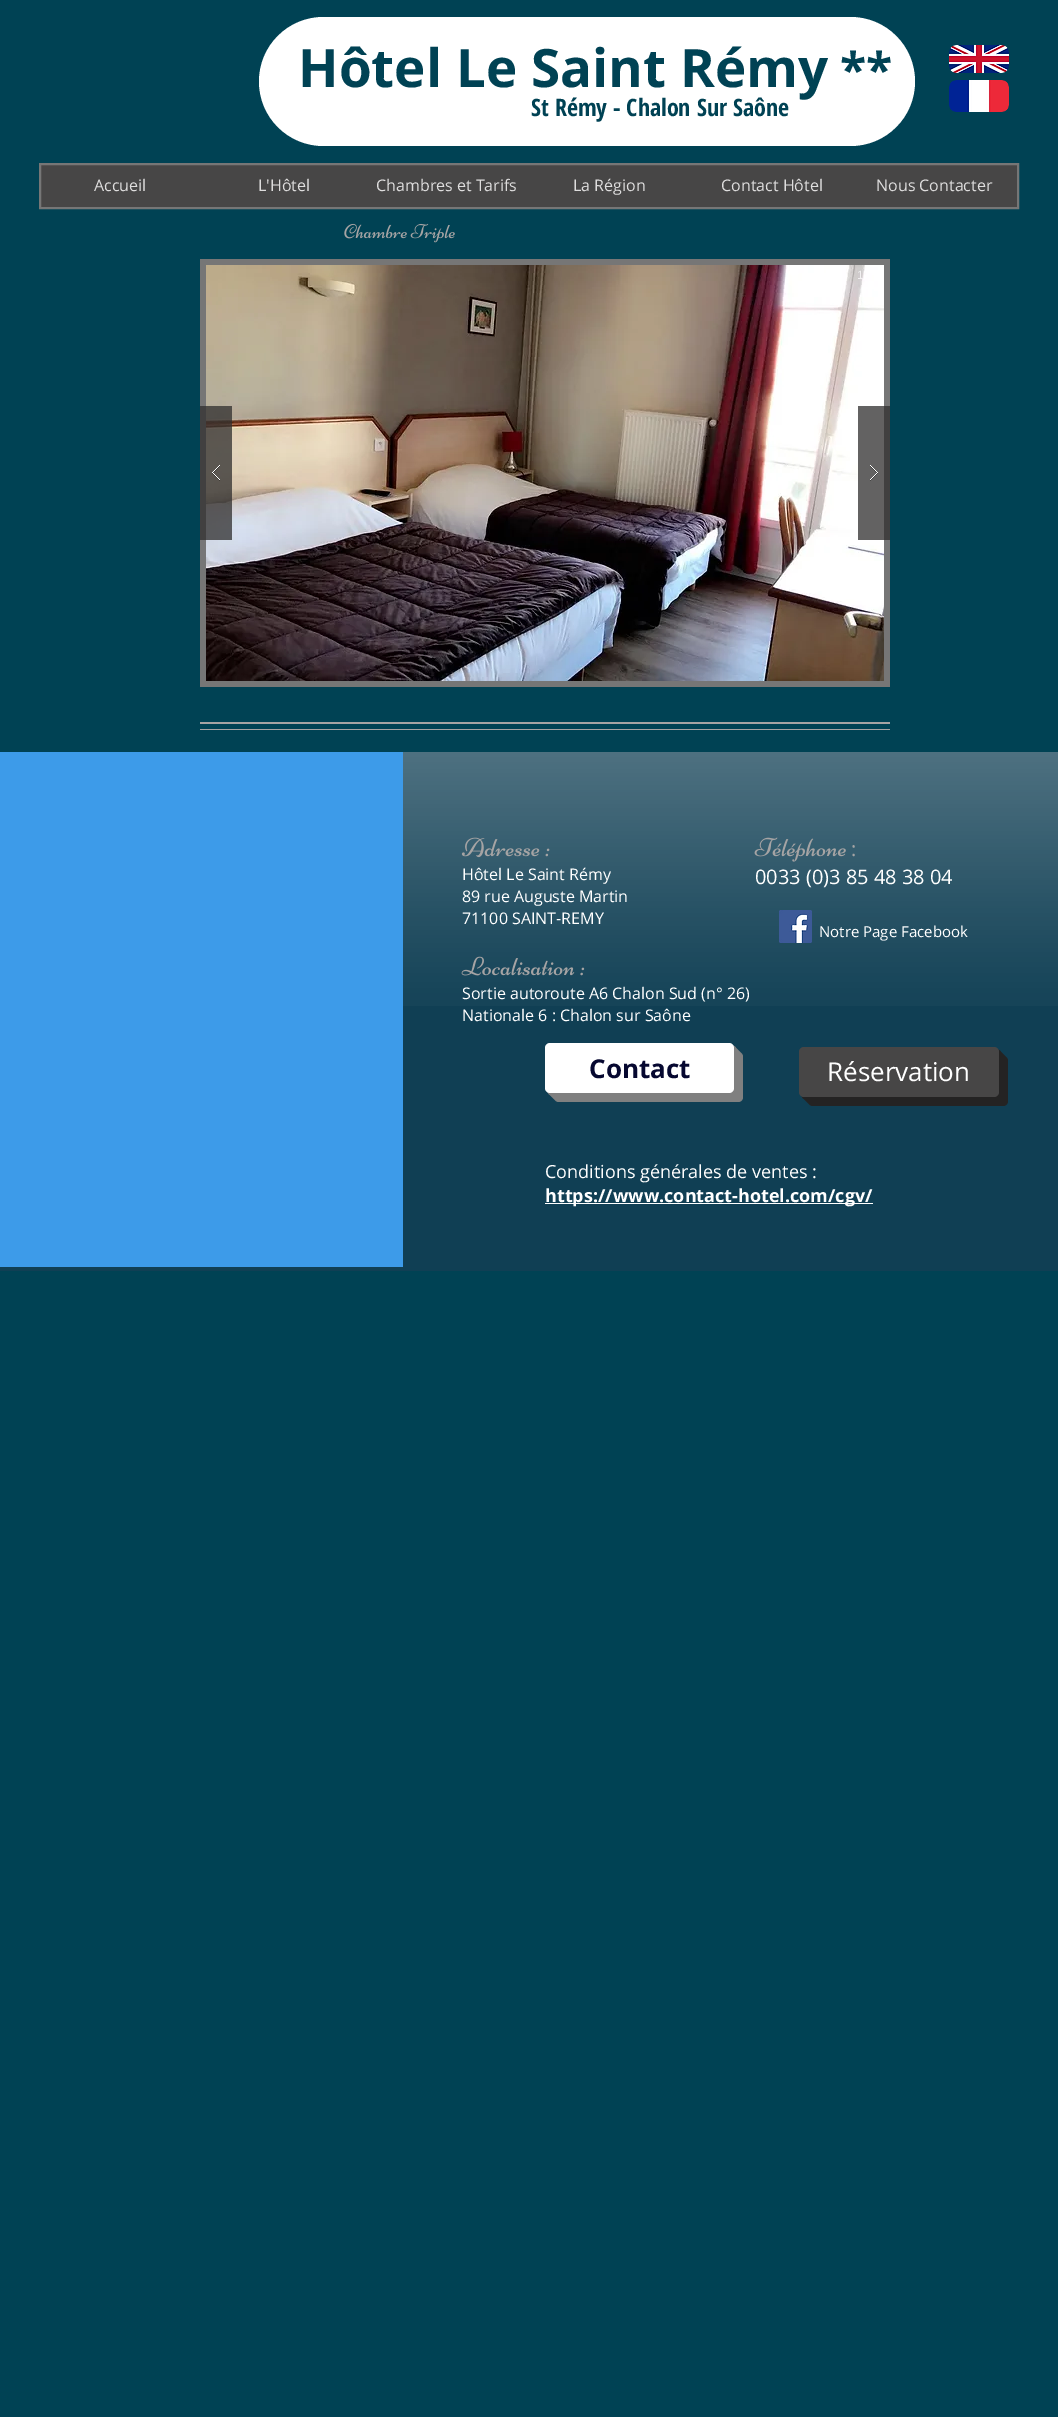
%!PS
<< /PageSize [1058 2417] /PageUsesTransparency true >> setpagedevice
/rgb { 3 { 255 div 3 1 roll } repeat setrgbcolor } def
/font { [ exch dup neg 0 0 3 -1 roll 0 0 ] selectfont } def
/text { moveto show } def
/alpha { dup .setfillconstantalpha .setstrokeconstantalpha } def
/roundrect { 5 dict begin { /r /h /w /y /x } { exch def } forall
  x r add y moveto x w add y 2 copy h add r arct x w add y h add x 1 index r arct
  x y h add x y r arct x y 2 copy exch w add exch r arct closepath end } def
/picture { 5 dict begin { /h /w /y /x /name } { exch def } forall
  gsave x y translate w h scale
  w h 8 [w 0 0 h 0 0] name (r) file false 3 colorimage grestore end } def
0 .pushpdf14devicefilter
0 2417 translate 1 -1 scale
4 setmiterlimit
0 66 84 rgb
0 0 1058 2417 rectfill
255 255 255 rgb
259 17 656 129 64.5 roundrect fill
(img_01.rgb) 949 45 60 28 picture
(img_02.rgb) 949 80 60 32 picture
71 70 70 rgb
40 164 moveto 978 0 rlineto 0 44 rlineto -978 0 rlineto closepath gsave fill grestore
118 118 118 rgb
2 setlinewidth
stroke
(img_03.rgb) 344 223 111 20 picture
200 259 690 428 rectfill
(img_04.rgb) 206 265 678 416 picture
0.75 alpha
47 46 46 rgb
200 406 32 134 rectfill
1 alpha
(img_05.rgb) 212 465 8 16 picture
0.75 alpha
858 406 32 134 rectfill
1 alpha
(img_06.rgb) 870 465 8 16 picture
166 164 164 rgb
200 722 690 2 rectfill
200 729 690 1 rectfill
16 63 84 rgb
0 752 1058 519 rectfill
(img_07.rgb) 403 752 655 254 picture
61 155 233 rgb
0 752 403 515 rectfill
(img_08.rgb) 461 837 89 21 picture
(img_09.rgb) 461 956 124 20 picture
(img_10.rgb) 754 837 92 25 picture
(img_11.rgb) 779 910 33 33 picture
128 128 128 rgb
554 1093 moveto 0 4 rlineto 0 3 2 5 5 5 rcurveto 179 0 rlineto 3 0 5 -2 5 -5 rcurveto 0 -40 rlineto 0 -3 -2 -5 -5 -5 rcurveto -4 0 rlineto 0 36 rlineto 0 3 -2 5 -5 5 rcurveto closepath fill
552 1093 moveto 0 2 rlineto 0 3 2 5 5 5 rcurveto 179 0 rlineto 3 0 5 -2 5 -5 rcurveto 0 -40 rlineto 0 -3 -2 -5 -5 -5 rcurveto -2 0 rlineto 0 38 rlineto 0 3 -2 5 -5 5 rcurveto closepath fill
550 1093 moveto 0 3 2 5 5 5 rcurveto 179 0 rlineto 3 0 5 -2 5 -5 rcurveto 0 -40 rlineto 0 -3 -2 -5 -5 -5 rcurveto 0 40 rlineto 0 3 -2 5 -5 5 rcurveto closepath fill
548 1093 moveto 1 2 3 3 5 3 rcurveto 179 0 rlineto 3 0 5 -2 5 -5 rcurveto 0 -40 rlineto 0 -2 -1 -4 -3 -5 rcurveto 0 35 rlineto 0 4 1 12 -5 12 rcurveto closepath fill
547 1092 moveto 1 1 2 2 4 2 rcurveto 179 0 rlineto 3 0 5 -2 5 -5 rcurveto 0 -40 rlineto 0 -2 -1 -3 -2 -4 rcurveto 1 1 1 2 1 3 rcurveto 0 40 rlineto 0 3 -2 5 -5 5 rcurveto -179 0 rlineto -1 0 -2 0 -3 -1 rcurveto closepath fill
255 255 255 rgb
545 1043 189 50 5 roundrect fill
36 35 35 rgb
808 1097 moveto 0 4 rlineto 0 3 2 5 5 5 rcurveto 190 0 rlineto 3 0 5 -2 5 -5 rcurveto 0 -40 rlineto 0 -3 -2 -5 -5 -5 rcurveto -4 0 rlineto 0 36 rlineto 0 3 -2 5 -5 5 rcurveto closepath fill
806 1097 moveto 0 2 rlineto 0 3 2 5 5 5 rcurveto 190 0 rlineto 3 0 5 -2 5 -5 rcurveto 0 -40 rlineto 0 -3 -2 -5 -5 -5 rcurveto -2 0 rlineto 0 38 rlineto 0 3 -2 5 -5 5 rcurveto closepath fill
804 1097 moveto 0 3 2 5 5 5 rcurveto 190 0 rlineto 3 0 5 -2 5 -5 rcurveto 0 -40 rlineto 0 -3 -2 -5 -5 -5 rcurveto 0 40 rlineto 0 3 -2 5 -5 5 rcurveto closepath fill
802 1097 moveto 1 2 3 3 5 3 rcurveto 190 0 rlineto 3 0 5 -2 5 -5 rcurveto 0 -40 rlineto 0 -2 -1 -4 -3 -5 rcurveto 0 35 rlineto 0 4 1 12 -5 12 rcurveto closepath fill
801 1096 moveto 1 1 2 2 4 2 rcurveto 190 0 rlineto 3 0 5 -2 5 -5 rcurveto 0 -40 rlineto 0 -2 -1 -3 -2 -4 rcurveto 1 1 1 2 1 3 rcurveto 0 40 rlineto 0 3 -2 5 -5 5 rcurveto -190 0 rlineto -1 0 -2 0 -3 -1 rcurveto closepath fill
71 70 70 rgb
799 1047 200 50 5 roundrect fill
255 255 255 rgb
545 1203 328 1 rectfill
/OpenSans-Bold 53 font
0 66 84 rgb
(Hôtel Le Saint Rémy) 298 87 text
/OpenSans-Bold 48 font
(**) 840 87 text
/OpenSansCondensed-Bold 24 font
(St Rémy - Chalon Sur Saône) 531 116 text
/OpenSans-Regular 16 font
222 221 221 rgb
(Accueil) 94 191 text
(L'Hôtel) 258 191 text
(Chambres et Tarifs) 376 191 text
(La Région) 573 191 text
(Contact Hôtel) 721 191 text
(Nous Contacter) 876 191 text
/LiberationSans-Regular 12 font
242 240 241 rgb
(1) 857 279 text
/OpenSans-Regular 16 font
255 255 255 rgb
(Hôtel Le Saint Rémy) 462 880 text
(89 rue Auguste Martin) 462 902 text
(71100 SAINT-REMY) 462 924 text
(Sortie autoroute A6 Chalon Sud \(n° 26\)) 462 999 text
(Nationale 6 : Chalon sur Saône) 462 1021 text
/OpenSans-Regular 20 font
166 164 164 rgb
(:) 851 856 text
255 255 255 rgb
(0033 \(0\)3 85 48 38 04) 755 884 text
/OpenSans-Regular 15 font
(Notre Page Facebook) 819 937 text
/OpenSans-Bold 26 font
6 8 48 rgb
(Contact) 589 1078 text
/OpenSans-Regular 26 font
255 255 255 rgb
(Réservation) 827 1081 text
/OpenSans-Regular 18 font
(Conditions générales de ventes :) 545 1178 text
/OpenSans-Bold 18 font
(https://www.contact-hotel.com/cgv/) 545 1202 text
.poppdf14devicefilter showpage
